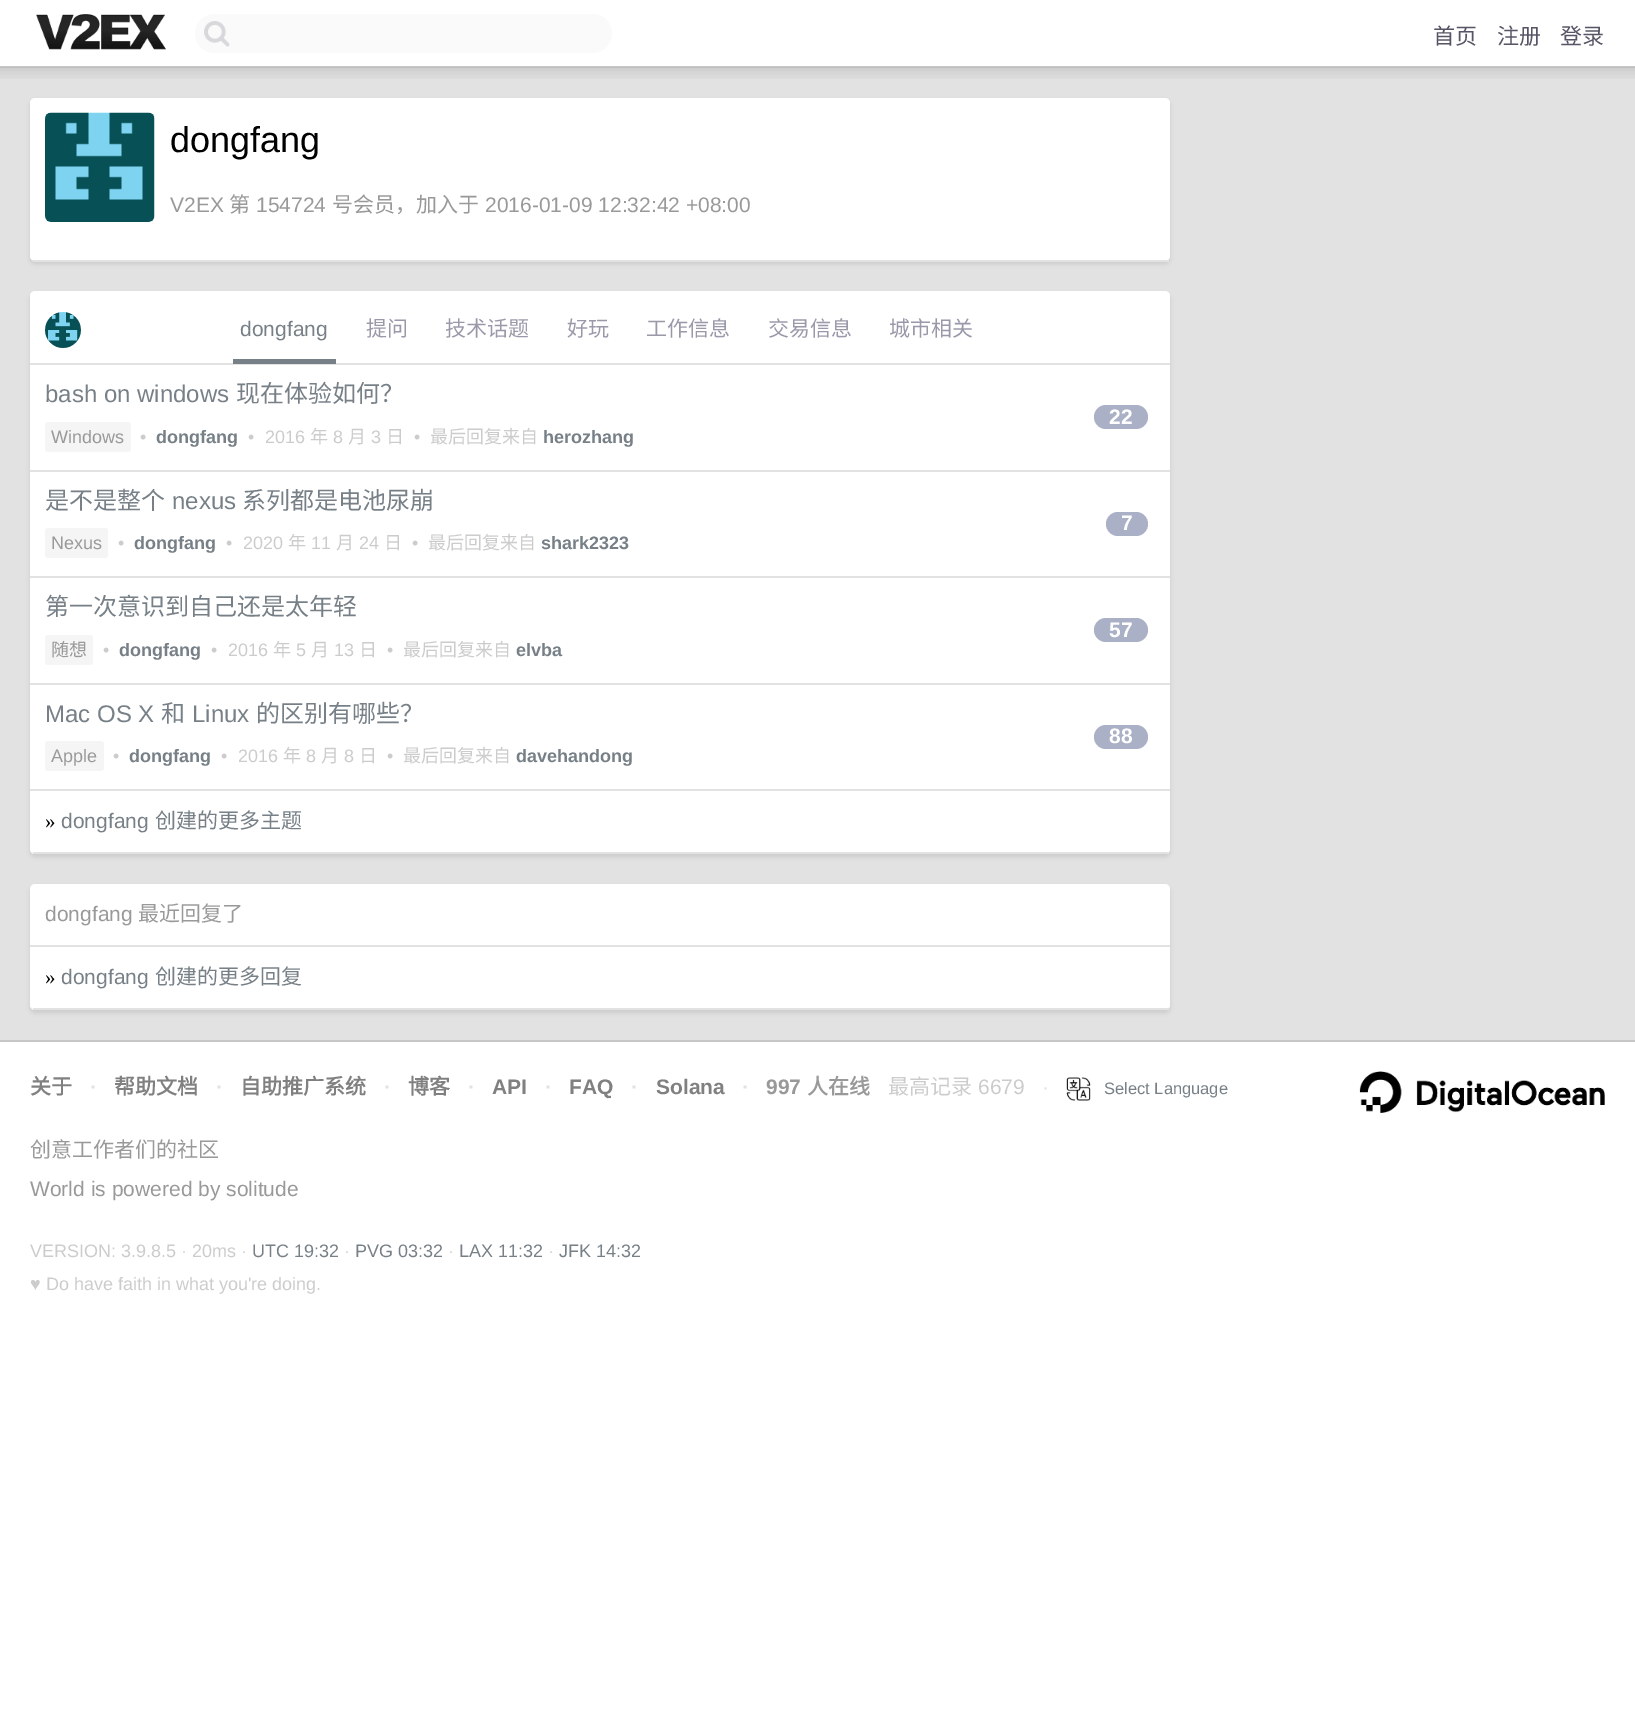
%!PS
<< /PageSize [1635 1713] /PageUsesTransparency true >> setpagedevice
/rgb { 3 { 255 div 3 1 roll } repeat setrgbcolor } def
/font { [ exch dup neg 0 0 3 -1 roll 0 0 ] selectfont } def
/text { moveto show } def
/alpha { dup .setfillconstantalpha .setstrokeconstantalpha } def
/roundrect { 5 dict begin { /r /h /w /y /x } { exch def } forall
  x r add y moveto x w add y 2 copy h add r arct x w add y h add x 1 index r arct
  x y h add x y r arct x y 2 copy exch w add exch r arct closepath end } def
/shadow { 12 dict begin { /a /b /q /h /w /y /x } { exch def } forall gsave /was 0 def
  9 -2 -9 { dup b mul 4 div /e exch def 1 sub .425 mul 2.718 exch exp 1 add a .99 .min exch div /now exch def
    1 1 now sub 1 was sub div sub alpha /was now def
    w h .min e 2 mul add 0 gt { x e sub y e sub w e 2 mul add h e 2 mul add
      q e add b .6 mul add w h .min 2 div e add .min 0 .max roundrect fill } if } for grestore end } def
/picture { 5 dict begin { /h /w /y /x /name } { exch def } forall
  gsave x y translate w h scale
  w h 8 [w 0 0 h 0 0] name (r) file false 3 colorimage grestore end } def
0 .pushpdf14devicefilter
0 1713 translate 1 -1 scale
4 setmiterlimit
255 255 255 rgb
0 0 1635 1713 rectfill
199 199 199 rgb
0 66 1635 2 rectfill
(img_01.rgb) 36 14 130 36 picture
250 250 250 rgb
195 14 417 39 19.5 roundrect fill
(img_02.rgb) 204 21 26 26 picture
226 226 226 rgb
0 68 1635 972 rectfill
(img_03.rgb) 0 67 1635 12 picture
0 0 0 rgb
30 101 1140 163 5 2 0.1 shadow
255 255 255 rgb
30 98 1140 163 5 roundrect fill
226 226 226 rgb
33 260 1136 2 rectfill
(img_04.rgb) 45 112 110 110 picture
0 0 0 rgb
30 294 1140 563 5 2 0.1 shadow
255 255 255 rgb
30 291 1140 563 5 roundrect fill
226 226 226 rgb
33 852 1136 2 rectfill
30 363 1140 2 rectfill
(img_05.rgb) 45 312 36 36 picture
119 128 135 rgb
233 359 103 5 rectfill
226 226 226 rgb
30 470 1140 2 rectfill
245 245 245 rgb
45 422 86 30 3 roundrect fill
170 176 198 rgb
1094 405 54 24 12 roundrect fill
226 226 226 rgb
30 576 1140 2 rectfill
245 245 245 rgb
45 528 63 30 3 roundrect fill
170 176 198 rgb
1106 512 42 24 12 roundrect fill
226 226 226 rgb
30 683 1140 2 rectfill
245 245 245 rgb
45 635 48 30 3 roundrect fill
170 176 198 rgb
1094 618 54 24 12 roundrect fill
226 226 226 rgb
30 789 1140 2 rectfill
245 245 245 rgb
45 741 59 30 3 roundrect fill
170 176 198 rgb
1094 725 54 24 12 roundrect fill
0 0 0 rgb
30 887 1140 126 5 2 0.1 shadow
255 255 255 rgb
30 884 1140 126 5 roundrect fill
226 226 226 rgb
33 1008 1136 2 rectfill
30 945 1140 2 rectfill
199 199 199 rgb
0 1040 1635 2 rectfill
(img_06.rgb) 1066 1077 25 24 picture
(img_07.rgb) 1359 1071 246 42 picture
/NotoSansCJKSC-Regular 22 font
85 85 102 rgb
(首页) 1433 44 text
(注册) 1497 44 text
(登录) 1560 44 text
/LiberationSans-Regular 36 font
0 0 0 rgb
(dongfang) 170 152 text
/LiberationSans-Regular 21 font
153 153 153 rgb
(V2EX) 170 212 text
/NotoSansCJKSC-Regular 21 font
(第) 229 212 text
/LiberationSans-Regular 21 font
(154724) 256 212 text
/NotoSansCJKSC-Regular 21 font
(号会员，加入于) 332 212 text
/LiberationSans-Regular 21 font
(2016-01-09 12:32:42 +08:00) 485 212 text
119 128 135 rgb
(dongfang) 240 336 text
/NotoSansCJKSC-Regular 21 font
153 153 170 rgb
(提问) 366 336 text
(技术话题) 445 336 text
(好玩) 567 336 text
(工作信息) 646 336 text
(交易信息) 768 336 text
(城市相关) 889 336 text
/LiberationSans-Regular 24 font
119 128 135 rgb
(bash on windows) 45 402 text
/NotoSansCJKSC-Regular 24 font
(现在体验如何？) 236 402 text
/LiberationSans-Regular 18 font
153 153 153 rgb
(Windows) 51 443 text
204 204 204 rgb
(•) 140 443 text
/LiberationSans-Bold 18 font
119 128 135 rgb
(dongfang) 156 443 text
/LiberationSans-Regular 18 font
204 204 204 rgb
(•) 248 443 text
(2016) 265 443 text
/NotoSansCJKSC-Regular 18 font
(年) 310 443 text
/LiberationSans-Regular 18 font
(8) 333 443 text
/NotoSansCJKSC-Regular 18 font
(月) 348 443 text
/LiberationSans-Regular 18 font
(3) 371 443 text
/NotoSansCJKSC-Regular 18 font
(日) 386 443 text
/LiberationSans-Regular 18 font
(•) 414 443 text
/NotoSansCJKSC-Regular 18 font
(最后回复来自) 430 443 text
/LiberationSans-Bold 18 font
119 128 135 rgb
(herozhang) 543 443 text
/LiberationSans-Bold 21 font
255 255 255 rgb
(22) 1109 424 text
/NotoSansCJKSC-Regular 24 font
119 128 135 rgb
(是不是整个) 45 509 text
/LiberationSans-Regular 24 font
(nexus) 172 509 text
/NotoSansCJKSC-Regular 24 font
(系列都是电池尿崩) 242 509 text
/LiberationSans-Regular 18 font
153 153 153 rgb
(Nexus) 51 549 text
204 204 204 rgb
(•) 118 549 text
/LiberationSans-Bold 18 font
119 128 135 rgb
(dongfang) 134 549 text
/LiberationSans-Regular 18 font
204 204 204 rgb
(•) 226 549 text
(2020) 243 549 text
/NotoSansCJKSC-Regular 18 font
(年) 288 549 text
/LiberationSans-Regular 18 font
(11) 311 549 text
/NotoSansCJKSC-Regular 18 font
(月) 336 549 text
/LiberationSans-Regular 18 font
(24) 359 549 text
/NotoSansCJKSC-Regular 18 font
(日) 384 549 text
/LiberationSans-Regular 18 font
(•) 412 549 text
/NotoSansCJKSC-Regular 18 font
(最后回复来自) 428 549 text
/LiberationSans-Bold 18 font
119 128 135 rgb
(shark2323) 541 549 text
/LiberationSans-Bold 21 font
255 255 255 rgb
(7) 1121 530 text
/NotoSansCJKSC-Regular 24 font
119 128 135 rgb
(第一次意识到自己还是太年轻) 45 615 text
/NotoSansCJKSC-Regular 18 font
153 153 153 rgb
(随想) 51 656 text
/LiberationSans-Regular 18 font
204 204 204 rgb
(•) 103 656 text
/LiberationSans-Bold 18 font
119 128 135 rgb
(dongfang) 119 656 text
/LiberationSans-Regular 18 font
204 204 204 rgb
(•) 211 656 text
(2016) 228 656 text
/NotoSansCJKSC-Regular 18 font
(年) 273 656 text
/LiberationSans-Regular 18 font
(5) 296 656 text
/NotoSansCJKSC-Regular 18 font
(月) 311 656 text
/LiberationSans-Regular 18 font
(13) 334 656 text
/NotoSansCJKSC-Regular 18 font
(日) 359 656 text
/LiberationSans-Regular 18 font
(•) 387 656 text
/NotoSansCJKSC-Regular 18 font
(最后回复来自) 403 656 text
/LiberationSans-Bold 18 font
119 128 135 rgb
(elvba) 516 656 text
/LiberationSans-Bold 21 font
255 255 255 rgb
(57) 1109 637 text
/LiberationSans-Regular 24 font
119 128 135 rgb
(Mac OS X) 45 722 text
/NotoSansCJKSC-Regular 24 font
(和) 161 722 text
/LiberationSans-Regular 24 font
(Linux) 192 722 text
/NotoSansCJKSC-Regular 24 font
(的区别有哪些？) 256 722 text
/LiberationSans-Regular 18 font
153 153 153 rgb
(Apple) 51 762 text
204 204 204 rgb
(•) 113 762 text
/LiberationSans-Bold 18 font
119 128 135 rgb
(dongfang) 129 762 text
/LiberationSans-Regular 18 font
204 204 204 rgb
(•) 221 762 text
(2016) 238 762 text
/NotoSansCJKSC-Regular 18 font
(年) 283 762 text
/LiberationSans-Regular 18 font
(8) 306 762 text
/NotoSansCJKSC-Regular 18 font
(月) 321 762 text
/LiberationSans-Regular 18 font
(8) 344 762 text
/NotoSansCJKSC-Regular 18 font
(日) 359 762 text
/LiberationSans-Regular 18 font
(•) 387 762 text
/NotoSansCJKSC-Regular 18 font
(最后回复来自) 403 762 text
/LiberationSans-Bold 18 font
119 128 135 rgb
(davehandong) 516 762 text
/LiberationSans-Bold 21 font
255 255 255 rgb
(88) 1109 743 text
/LiberationSerif-Regular 21 font
0 0 0 rgb
(») 45 828 text
/LiberationSans-Regular 21 font
119 128 135 rgb
(dongfang) 61 828 text
/NotoSansCJKSC-Regular 21 font
(创建的更多主题) 155 828 text
/LiberationSans-Regular 21 font
153 153 153 rgb
(dongfang) 45 921 text
/NotoSansCJKSC-Regular 21 font
(最近回复了) 138 921 text
/LiberationSerif-Regular 21 font
0 0 0 rgb
(») 45 984 text
/LiberationSans-Regular 21 font
119 128 135 rgb
(dongfang) 61 984 text
/NotoSansCJKSC-Regular 21 font
(创建的更多回复) 155 984 text
/NotoSansCJKSC-Bold 21 font
128 128 128 rgb
(关于) 30 1094 text
/LiberationSans-Bold 21 font
226 226 226 rgb
(·) 90 1094 text
/NotoSansCJKSC-Bold 21 font
128 128 128 rgb
(帮助文档) 114 1094 text
/LiberationSans-Bold 21 font
226 226 226 rgb
(·) 216 1094 text
/NotoSansCJKSC-Bold 21 font
128 128 128 rgb
(自助推广系统) 240 1094 text
/LiberationSans-Bold 21 font
226 226 226 rgb
(·) 384 1094 text
/NotoSansCJKSC-Bold 21 font
128 128 128 rgb
(博客) 408 1094 text
/LiberationSans-Bold 21 font
226 226 226 rgb
(·) 468 1094 text
128 128 128 rgb
(API) 492 1094 text
226 226 226 rgb
(·) 545 1094 text
128 128 128 rgb
(FAQ) 569 1094 text
226 226 226 rgb
(·) 631 1094 text
128 128 128 rgb
(Solana) 656 1094 text
226 226 226 rgb
(·) 742 1094 text
153 153 153 rgb
(997) 766 1094 text
/NotoSansCJKSC-Bold 21 font
(人在线) 807 1094 text
/NotoSansCJKSC-Regular 21 font
204 204 204 rgb
(最高记录) 888 1094 text
/LiberationSans-Regular 21 font
(6679) 978 1094 text
226 226 226 rgb
(·) 1042 1094 text
/LiberationSans-Regular 16.5 font
119 128 135 rgb
(Select Language) 1104 1094 text
/NotoSansCJKSC-Regular 21 font
153 153 153 rgb
(创意工作者们的社区) 30 1157 text
/LiberationSans-Regular 21 font
(World is powered by solitude) 30 1196 text
/LiberationSans-Regular 18 font
204 204 204 rgb
(VERSION: 3.9.8.5 · 20ms ·) 30 1257 text
119 128 135 rgb
(UTC 19:32) 252 1257 text
204 204 204 rgb
(·) 344 1257 text
119 128 135 rgb
(PVG 03:32) 355 1257 text
204 204 204 rgb
(·) 448 1257 text
119 128 135 rgb
(LAX 11:32) 459 1257 text
204 204 204 rgb
(·) 548 1257 text
119 128 135 rgb
(JFK 14:32) 559 1257 text
204 204 204 rgb
(♥ Do have faith in what you're doing.) 30 1290 text
.poppdf14devicefilter showpage
